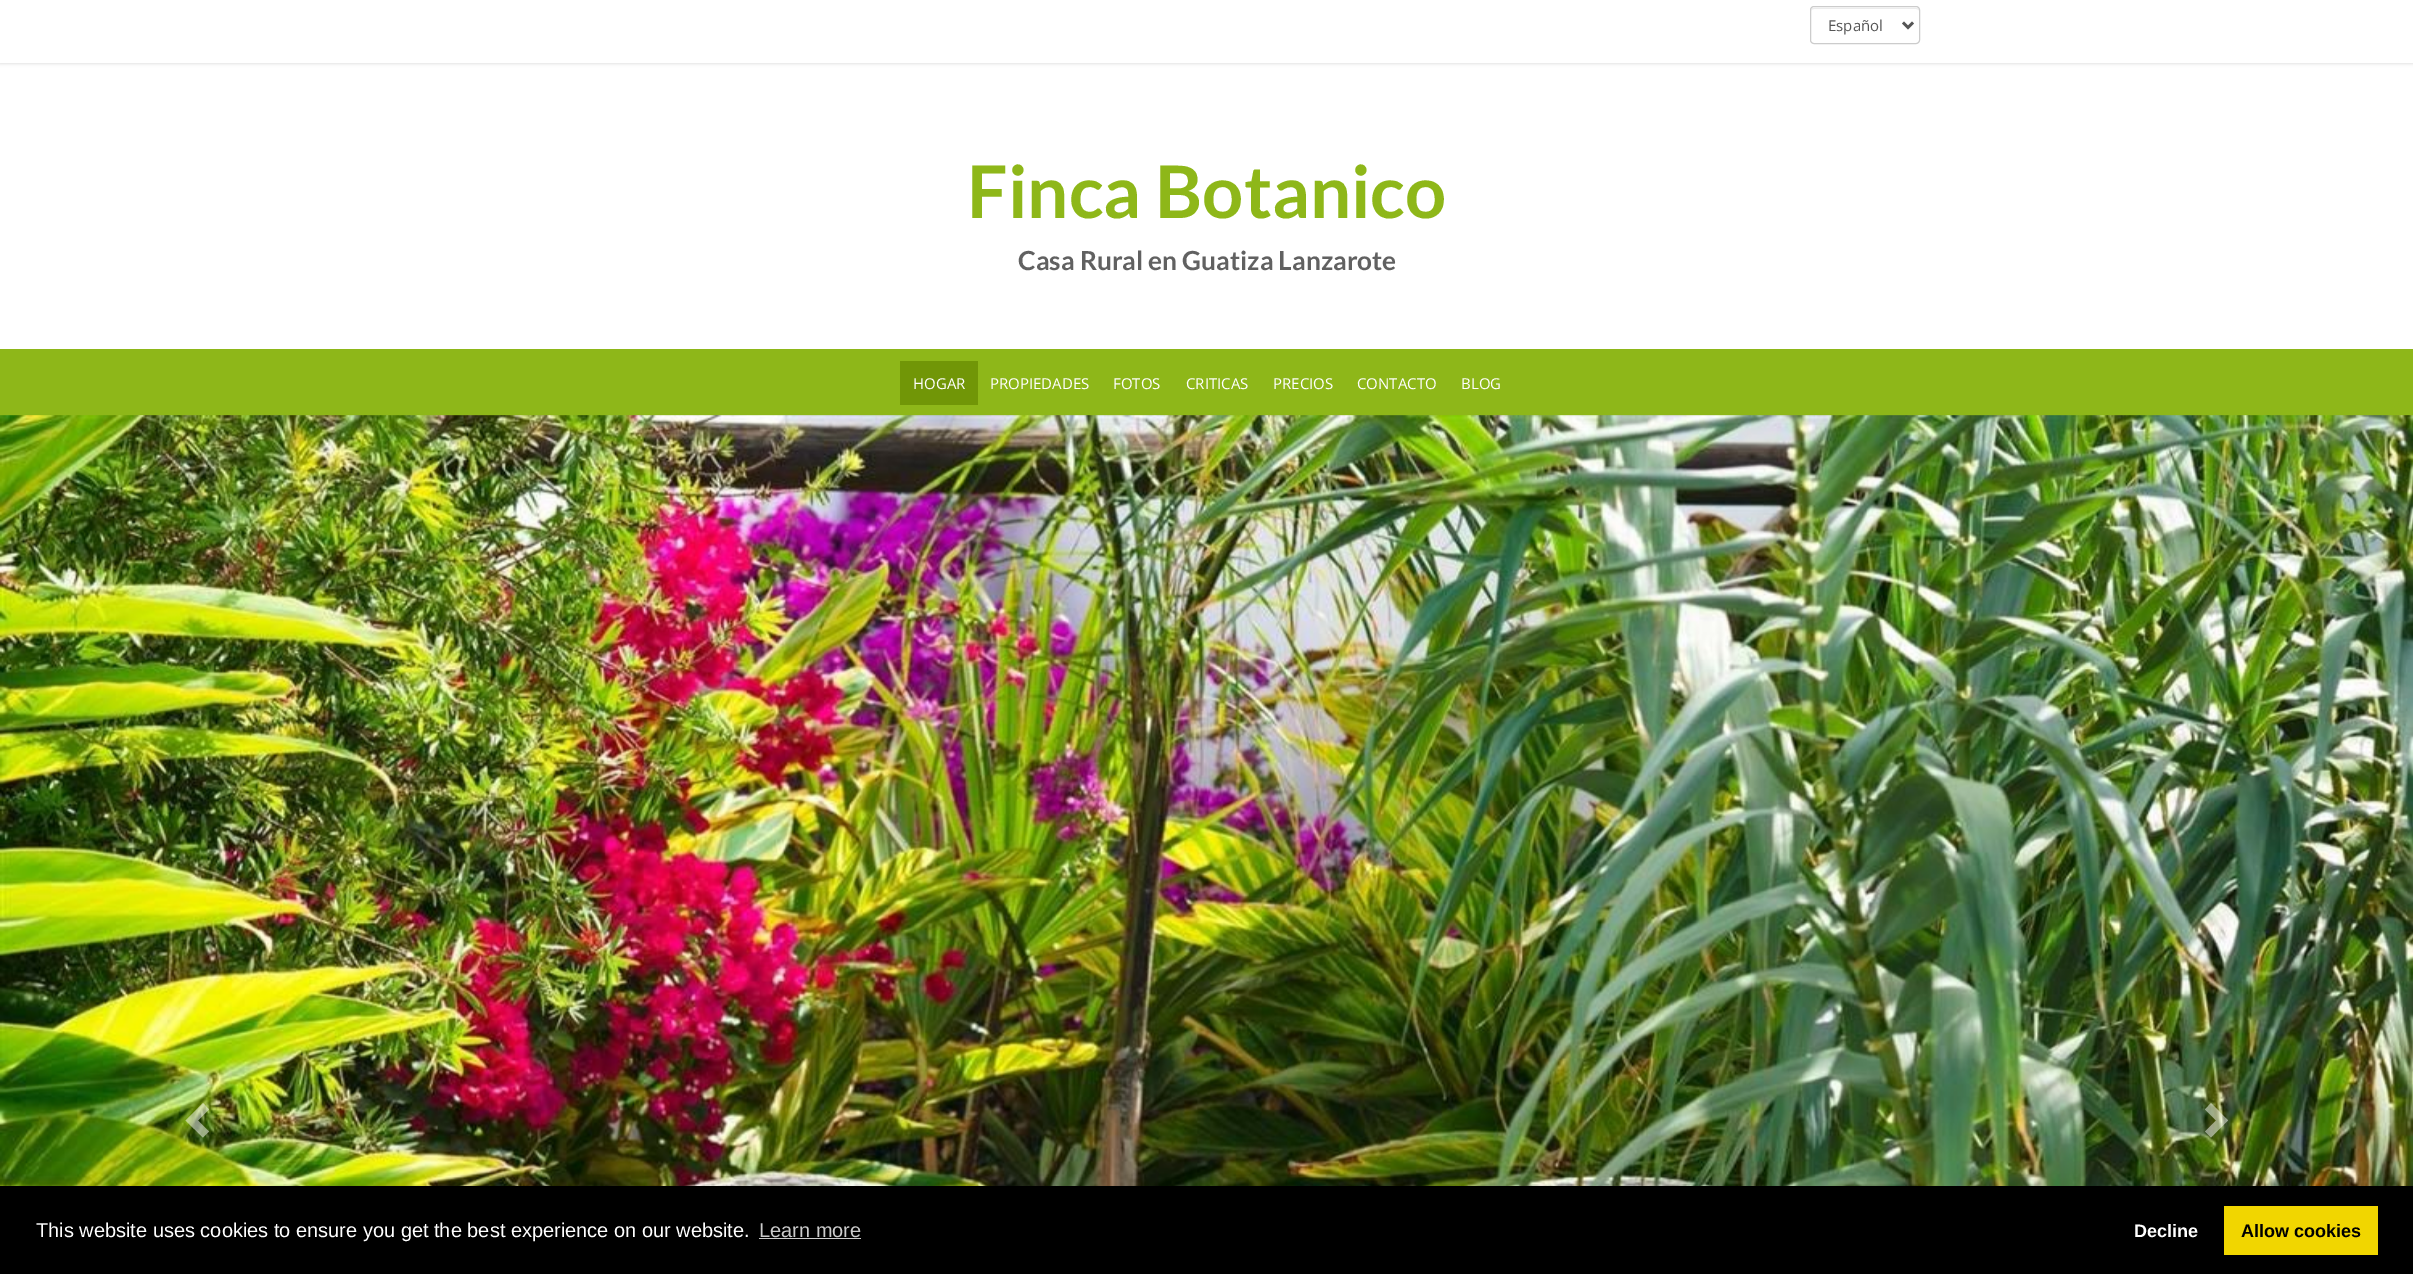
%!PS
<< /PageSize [2413 1274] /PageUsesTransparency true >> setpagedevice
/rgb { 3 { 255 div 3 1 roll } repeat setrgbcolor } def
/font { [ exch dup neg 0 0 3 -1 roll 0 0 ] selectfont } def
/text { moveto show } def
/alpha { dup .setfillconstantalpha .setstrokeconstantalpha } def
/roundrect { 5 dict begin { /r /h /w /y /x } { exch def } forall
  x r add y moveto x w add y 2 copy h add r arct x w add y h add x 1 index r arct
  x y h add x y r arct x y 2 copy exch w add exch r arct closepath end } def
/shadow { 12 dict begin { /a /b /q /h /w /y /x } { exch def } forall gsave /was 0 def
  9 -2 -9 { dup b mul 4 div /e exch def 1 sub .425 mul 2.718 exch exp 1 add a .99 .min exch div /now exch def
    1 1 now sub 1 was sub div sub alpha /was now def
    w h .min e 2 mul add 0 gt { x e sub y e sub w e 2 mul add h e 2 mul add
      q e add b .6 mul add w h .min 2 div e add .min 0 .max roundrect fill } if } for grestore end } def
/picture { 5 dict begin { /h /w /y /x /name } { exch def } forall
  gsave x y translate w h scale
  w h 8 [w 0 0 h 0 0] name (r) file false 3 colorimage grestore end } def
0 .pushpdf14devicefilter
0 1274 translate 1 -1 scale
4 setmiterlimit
255 255 255 rgb
0 0 2413 1274 rectfill
gsave
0 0 moveto 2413 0 rlineto 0 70 rlineto -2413 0 rlineto closepath 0 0 moveto 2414 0 rlineto 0 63 rlineto -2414 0 rlineto closepath eoclip newpath
208 208 208 rgb
0 0 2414 63 0 2 1 shadow
grestore
236 236 236 rgb
1814 9 moveto 102 0 rlineto 2 0 3 1 3 2 rcurveto 0 -2 -1 -3 -3 -3 rcurveto -103 0 rlineto -1 0 -2 2 -2 3 rcurveto 0 -1 1 -2 3 -2 rcurveto closepath fill
204 204 204 rgb
1810.5 6.5 109 37 3.5 roundrect stroke
85 85 85 rgb
2.5 setlinewidth
1903 22.5 moveto 5 5 rlineto 5 -5 rlineto stroke
142 183 25 rgb
0 349 2413 67 rectfill
113 150 7 rgb
900 361 78 44 rectfill
(img_01.rgb) 0 415 2413 771 picture
0.5 alpha
255 255 255 rgb
209 1109.5 moveto -11 11 rlineto 11 11 rlineto -6 6 rlineto -17.5 -17 rlineto 17.5 -17.5 rlineto closepath fill
2228 1120.5 moveto -17 17 rlineto -6 -6 rlineto 11 -11 rlineto -11 -11 rlineto 6 -6.5 rlineto closepath fill
1 alpha
0 0 0 rgb
0 1186 2413 88 rectfill
204 204 204 rgb
759 1238 102 1 rectfill
241 214 0 rgb
2224 1206 154 49 rectfill
/OpenSans-Regular 15 font
85 85 85 rgb
(Español) 1828 31 text
/Lato-Bold 72.5 font
142 183 25 rgb
(Finca Botanico) 967 218 text
/Lato-Bold 26.25 font
97 97 97 rgb
(Casa Rural en Guatiza Lanzarote) 1018 270 text
/OpenSans-Regular 15 font
255 255 255 rgb
(HOGAR) 913 389 text
(PROPIEDADES) 990 389 text
(FOTOS) 1113 389 text
(CRITICAS) 1186 389 text
(PRECIOS) 1273 389 text
(CONTACTO) 1357 389 text
(BLOG) 1461 389 text
/LiberationSans-Regular 20 font
(This website uses cookies to ensure you get the best experience on our website.) 36 1237 text
204 204 204 rgb
(Learn more) 759 1237 text
/LiberationSans-Bold 18 font
255 255 255 rgb
(Decline) 2134 1237 text
0 0 0 rgb
(Allow cookies) 2241 1237 text
.poppdf14devicefilter showpage
